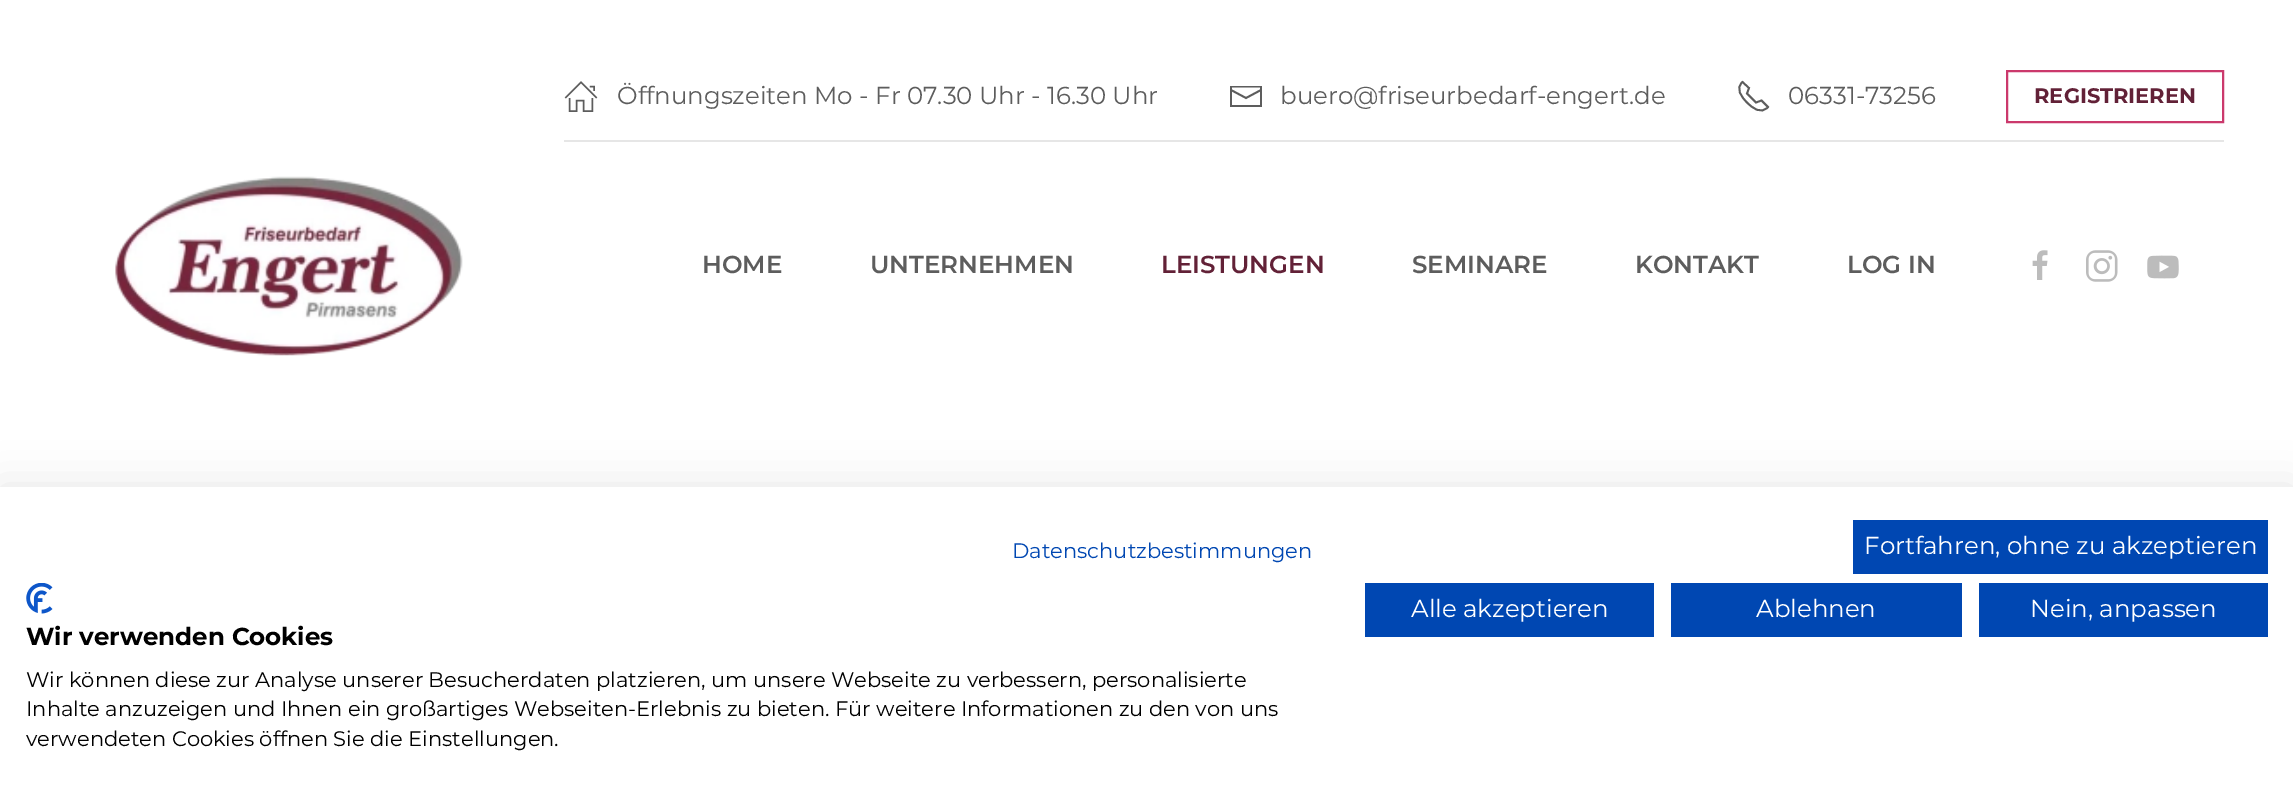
%!PS
<< /PageSize [2293 800] /PageUsesTransparency true >> setpagedevice
/rgb { 3 { 255 div 3 1 roll } repeat setrgbcolor } def
/font { [ exch dup neg 0 0 3 -1 roll 0 0 ] selectfont } def
/text { moveto show } def
/alpha { dup .setfillconstantalpha .setstrokeconstantalpha } def
/roundrect { 5 dict begin { /r /h /w /y /x } { exch def } forall
  x r add y moveto x w add y 2 copy h add r arct x w add y h add x 1 index r arct
  x y h add x y r arct x y 2 copy exch w add exch r arct closepath end } def
/shadow { 12 dict begin { /a /b /q /h /w /y /x } { exch def } forall gsave /was 0 def
  9 -2 -9 { dup b mul 4 div /e exch def 1 sub .425 mul 2.718 exch exp 1 add a .99 .min exch div /now exch def
    1 1 now sub 1 was sub div sub alpha /was now def
    w h .min e 2 mul add 0 gt { x e sub y e sub w e 2 mul add h e 2 mul add
      q e add b .6 mul add w h .min 2 div e add .min 0 .max roundrect fill } if } for grestore end } def
/picture { 5 dict begin { /h /w /y /x /name } { exch def } forall
  gsave x y translate w h scale
  w h 8 [w 0 0 h 0 0] name (r) file false 3 colorimage grestore end } def
0 .pushpdf14devicefilter
0 800 translate 1 -1 scale
4 setmiterlimit
255 255 255 rgb
0 0 2293 800 rectfill
(img_01.rgb) 564 81 34 31 picture
93 93 93 rgb
1.8 setlinewidth
1231 90 moveto 15 8 rlineto 15 -8 rlineto stroke
1230 86 moveto 0 21 rlineto 32 0 rlineto 0 -21 rlineto closepath 1260 105 moveto -28 0 rlineto 0 -17.5 rlineto 28 0 rlineto closepath fill
1747 102.5 moveto 5.5 5.5 14 12.5 21 4.5 rcurveto -6.5 -6.5 rlineto -5.5 2 rlineto -9 -9 rlineto 2 -5.5 rlineto -6.5 -6 rlineto -7.5 6.5 -1 15 4.5 20.5 rcurveto stroke
203 57 108 rgb
2 setlinewidth
2007 71 216 51 rectstroke
230 230 230 rgb
564 140 1660 2 rectfill
(img_02.rgb) 115 176 348 180 picture
(img_03.rgb) 2032 250 16 30 picture
(img_04.rgb) 2086 250 32 32 picture
(img_05.rgb) 2147 255 32 24 picture
0 0 0 rgb
0 487 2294 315 0 21 0.1 shadow
255 255 255 rgb
0 487 2293 313 rectfill
0 71 178 rgb
1853 520 415 54 rectfill
1365 583 289 54 rectfill
1671 583 291 54 rectfill
1979 583 289 54 rectfill
(img_06.rgb) 26 583 27 31 picture
/Montserrat-Thin 24.5 font
93 93 93 rgb
(Öffnungszeiten Mo - Fr 07.30 Uhr - 16.30 Uhr) 617 104 text
(buero@friseurbedarf-engert.de) 1280 104 text
(06331-73256) 1788 104 text
/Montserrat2-Thin 21 font
98 33 55 rgb
(REGISTRIEREN) 2034 103 text
/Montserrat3-Thin 24.5 font
93 93 93 rgb
(HOME) 702 273 text
(UNTERNEHMEN) 870 273 text
98 33 55 rgb
(LEISTUNGEN) 1161 273 text
93 93 93 rgb
(SEMINARE) 1412 273 text
(KONTAKT) 1635 273 text
(LOG IN) 1847 273 text
/Montserrat-Thin 21 font
0 71 178 rgb
(Datenschutzbestimmungen) 1012 558 text
/Montserrat-Thin 24.5 font
255 255 255 rgb
(Fortfahren, ohne zu akzeptieren) 1864 554 text
(Alle akzeptieren) 1411 617 text
(Ablehnen) 1756 617 text
(Nein, anpassen) 2030 617 text
/Montserrat2-Thin 24.5 font
0 0 0 rgb
(Wir verwenden Cookies) 26 645 text
/Montserrat-Thin 21 font
(Wir können diese zur Analyse unserer Besucherdaten platzieren, um unsere Webseite zu verbessern, personalisierte) 26 687 text
(Inhalte anzuzeigen und Ihnen ein großartiges Webseiten-Erlebnis zu bieten. Für weitere Informationen zu den von uns) 26 716 text
(verwendeten Cookies öffnen Sie die Einstellungen.) 26 746 text
.poppdf14devicefilter showpage
